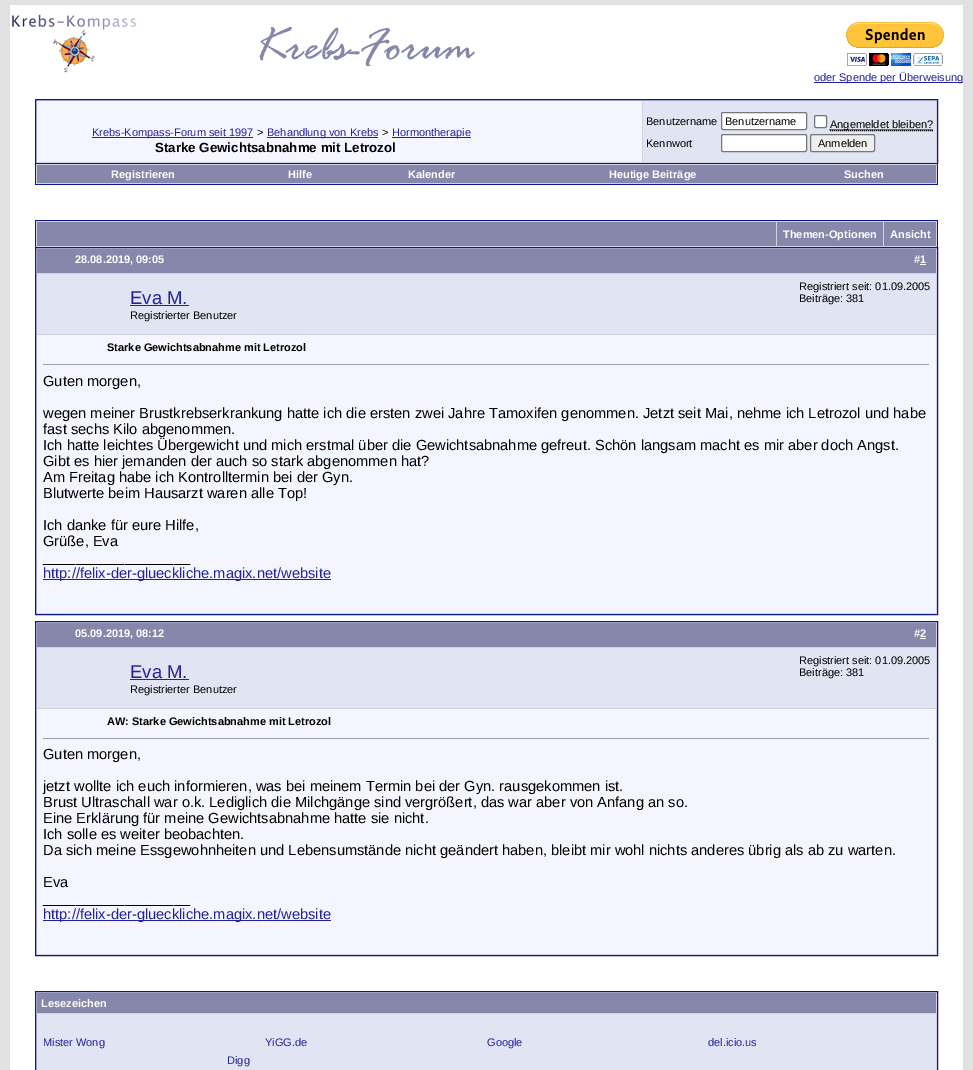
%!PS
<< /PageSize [973 1070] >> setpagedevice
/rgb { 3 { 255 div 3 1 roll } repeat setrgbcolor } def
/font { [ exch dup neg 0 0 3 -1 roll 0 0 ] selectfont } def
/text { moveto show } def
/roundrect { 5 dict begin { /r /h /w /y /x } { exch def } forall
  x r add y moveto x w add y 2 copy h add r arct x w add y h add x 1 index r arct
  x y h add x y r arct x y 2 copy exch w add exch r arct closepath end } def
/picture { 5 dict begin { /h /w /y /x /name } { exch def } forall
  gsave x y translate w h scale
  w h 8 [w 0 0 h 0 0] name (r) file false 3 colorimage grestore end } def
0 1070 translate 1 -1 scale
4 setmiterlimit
225 225 226 rgb
0 0 973 1070 rectfill
255 255 255 rgb
10 5 953 1065 rectfill
(img_01.rgb) 11 14 125 59 picture
(img_02.rgb) 259 26 216 40 picture
(img_03.rgb) 846 22 98 44 picture
34 34 156 rgb
814 82 149 1 rectfill
209 209 225 rgb
35.5 99.5 moveto 902 0 rlineto 0 64 rlineto -902 0 rlineto closepath gsave fill grestore
11 25 140 rgb
stroke
245 245 255 rgb
37 101 605 61 rectfill
34 34 156 rgb
92 137 161 1 rectfill
267 137 111 1 rectfill
392 137 79 1 rectfill
225 228 242 rgb
643 101 293 61 rectfill
255 255 255 rgb
721.5 112.5 85 17 1.5 roundrect gsave fill grestore
118 118 118 rgb
stroke
255 255 255 rgb
814.5 115.5 12 12 1.5 roundrect gsave fill grestore
118 118 118 rgb
stroke
0 0 0 rgb
[1 1] 0 setdash
830 130.5 moveto 103 0 rlineto stroke
829.5 129.5 moveto 103.5 0 rlineto stroke
255 255 255 rgb
721.5 134.5 85 17 1.5 roundrect gsave fill grestore
118 118 118 rgb
[] 0 setdash
stroke
239 239 239 rgb
810.5 134.5 64 17 1.5 roundrect gsave fill grestore
118 118 118 rgb
stroke
209 209 225 rgb
36 164 901 20 rectfill
11 25 140 rgb
937 164 1 21 rectfill
35 184 903 1 rectfill
35 164 1 21 rectfill
135 135 171 rgb
37 165 899 18 rectfill
209 209 225 rgb
36 221 901 26 rectfill
11 25 140 rgb
35 220 903 1 rectfill
937 220 1 27 rectfill
35 220 1 27 rectfill
135 135 171 rgb
37 222 739 24 rectfill
777 222 106 24 rectfill
884 222 52 24 rectfill
209 209 225 rgb
35.5 247.5 moveto 902 0 rlineto 0 367 rlineto -902 0 rlineto closepath gsave fill grestore
11 25 140 rgb
stroke
135 135 171 rgb
37 249 899 24 rectfill
255 255 255 rgb
920 264 6 1 rectfill
225 228 242 rgb
37 274 899 60 rectfill
34 34 156 rgb
130 305 59 1 rectfill
245 245 255 rgb
37 335 899 278 rectfill
159 159 159 rgb
43 364 887 1 rectfill
238 238 238 rgb
929 364 1 1 rectfill
34 34 156 rgb
43 579 288 1 rectfill
209 209 225 rgb
35.5 621.5 moveto 902 0 rlineto 0 334 rlineto -902 0 rlineto closepath gsave fill grestore
11 25 140 rgb
stroke
135 135 171 rgb
37 623 899 24 rectfill
255 255 255 rgb
920 638 6 1 rectfill
225 228 242 rgb
37 648 899 60 rectfill
34 34 156 rgb
130 679 59 1 rectfill
245 245 255 rgb
37 709 899 245 rectfill
159 159 159 rgb
43 738 887 1 rectfill
238 238 238 rgb
929 738 1 1 rectfill
34 34 156 rgb
43 920 288 1 rectfill
209 209 225 rgb
35.5 991.5 moveto 902 0 rlineto 0 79 rlineto -902 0 rlineto closepath gsave fill grestore
11 25 140 rgb
stroke
135 135 171 rgb
37 993 899 20 rectfill
225 228 242 rgb
37 1014 899 56 rectfill
/LiberationSans-Regular 11 font
34 34 156 rgb
(oder Spende per Überweisung) 814 81 text
(Krebs-Kompass-Forum seit 1997) 92 136 text
0 0 0 rgb
(>) 257 136 text
34 34 156 rgb
(Behandlung von Krebs) 267 136 text
0 0 0 rgb
(>) 382 136 text
34 34 156 rgb
(Hormontherapie) 392 136 text
/LiberationSans-Bold 13.3 font
0 0 0 rgb
(Starke Gewichtsabnahme mit Letrozol) 155 152 text
/LiberationSans-Regular 11 font
(Benutzername) 646 125 text
(Benutzername) 725 125 text
(Angemeldet bleiben?) 830 128 text
(Kennwort) 646 147 text
(Anmelden) 818 147 text
/LiberationSans-Bold 11 font
255 255 255 rgb
(Registrieren) 111 178 text
(Hilfe) 288 178 text
(Kalender) 408 178 text
(Heutige Beiträge) 609 178 text
(Suchen) 844 178 text
(Themen-Optionen) 783 238 text
(Ansicht) 890 238 text
(28.08.2019, 09:05) 75 263 text
(#1) 914 263 text
/LiberationSans-Regular 18.5 font
34 34 156 rgb
(Eva M.) 130 304 text
/LiberationSans-Regular 11 font
0 0 0 rgb
(Registrierter Benutzer) 130 319 text
(Registriert seit: 01.09.2005) 799 290 text
(Beiträge: 381) 799 302 text
/LiberationSans-Bold 11 font
(Starke Gewichtsabnahme mit Letrozol) 107 351 text
/LiberationSans-Regular 14.67 font
(Guten morgen,) 43 386 text
(wegen meiner Brustkrebserkrankung hatte ich die ersten zwei Jahre Tamoxifen genommen. Jetzt seit Mai, nehme ich Letrozol und habe) 43 418 text
(fast sechs Kilo abgenommen.) 43 434 text
(Ich hatte leichtes Übergewicht und mich erstmal über die Gewichtsabnahme gefreut. Schön langsam macht es mir aber doch Angst.) 43 450 text
(Gibt es hier jemanden der auch so stark abgenommen hat?) 43 466 text
(Am Freitag habe ich Kontrolltermin bei der Gyn.) 43 482 text
(Blutwerte beim Hausarzt waren alle Top!) 43 498 text
(Ich danke für eure Hilfe,) 43 530 text
(Grüße, Eva) 43 546 text
(__________________) 43 562 text
34 34 156 rgb
(http://felix-der-glueckliche.magix.net/website) 43 578 text
/LiberationSans-Bold 11 font
255 255 255 rgb
(05.09.2019, 08:12) 75 637 text
(#2) 914 637 text
/LiberationSans-Regular 18.5 font
34 34 156 rgb
(Eva M.) 130 678 text
/LiberationSans-Regular 11 font
0 0 0 rgb
(Registrierter Benutzer) 130 693 text
(Registriert seit: 01.09.2005) 799 664 text
(Beiträge: 381) 799 676 text
/LiberationSans-Bold 11 font
(AW: Starke Gewichtsabnahme mit Letrozol) 107 725 text
/LiberationSans-Regular 14.67 font
(Guten morgen,) 43 759 text
(jetzt wollte ich euch informieren, was bei meinem Termin bei der Gyn. rausgekommen ist.) 43 791 text
(Brust Ultraschall war o.k. Lediglich die Milchgänge sind vergrößert, das war aber von Anfang an so.) 43 807 text
(Eine Erklärung für meine Gewichtsabnahme hatte sie nicht.) 43 823 text
(Ich solle es weiter beobachten.) 43 839 text
(Da sich meine Essgewohnheiten und Lebensumstände nicht geändert haben, bleibt mir wohl nichts anderes übrig als ab zu warten.) 43 855 text
(Eva) 43 887 text
(__________________) 43 903 text
34 34 156 rgb
(http://felix-der-glueckliche.magix.net/website) 43 919 text
/LiberationSans-Bold 11 font
255 255 255 rgb
(Lesezeichen) 41 1007 text
/LiberationSans-Regular 11 font
34 34 156 rgb
(Mister Wong) 43 1046 text
(YiGG.de) 265 1046 text
(Google) 487 1046 text
(del.icio.us) 708 1046 text
(Digg) 227 1064 text
showpage
